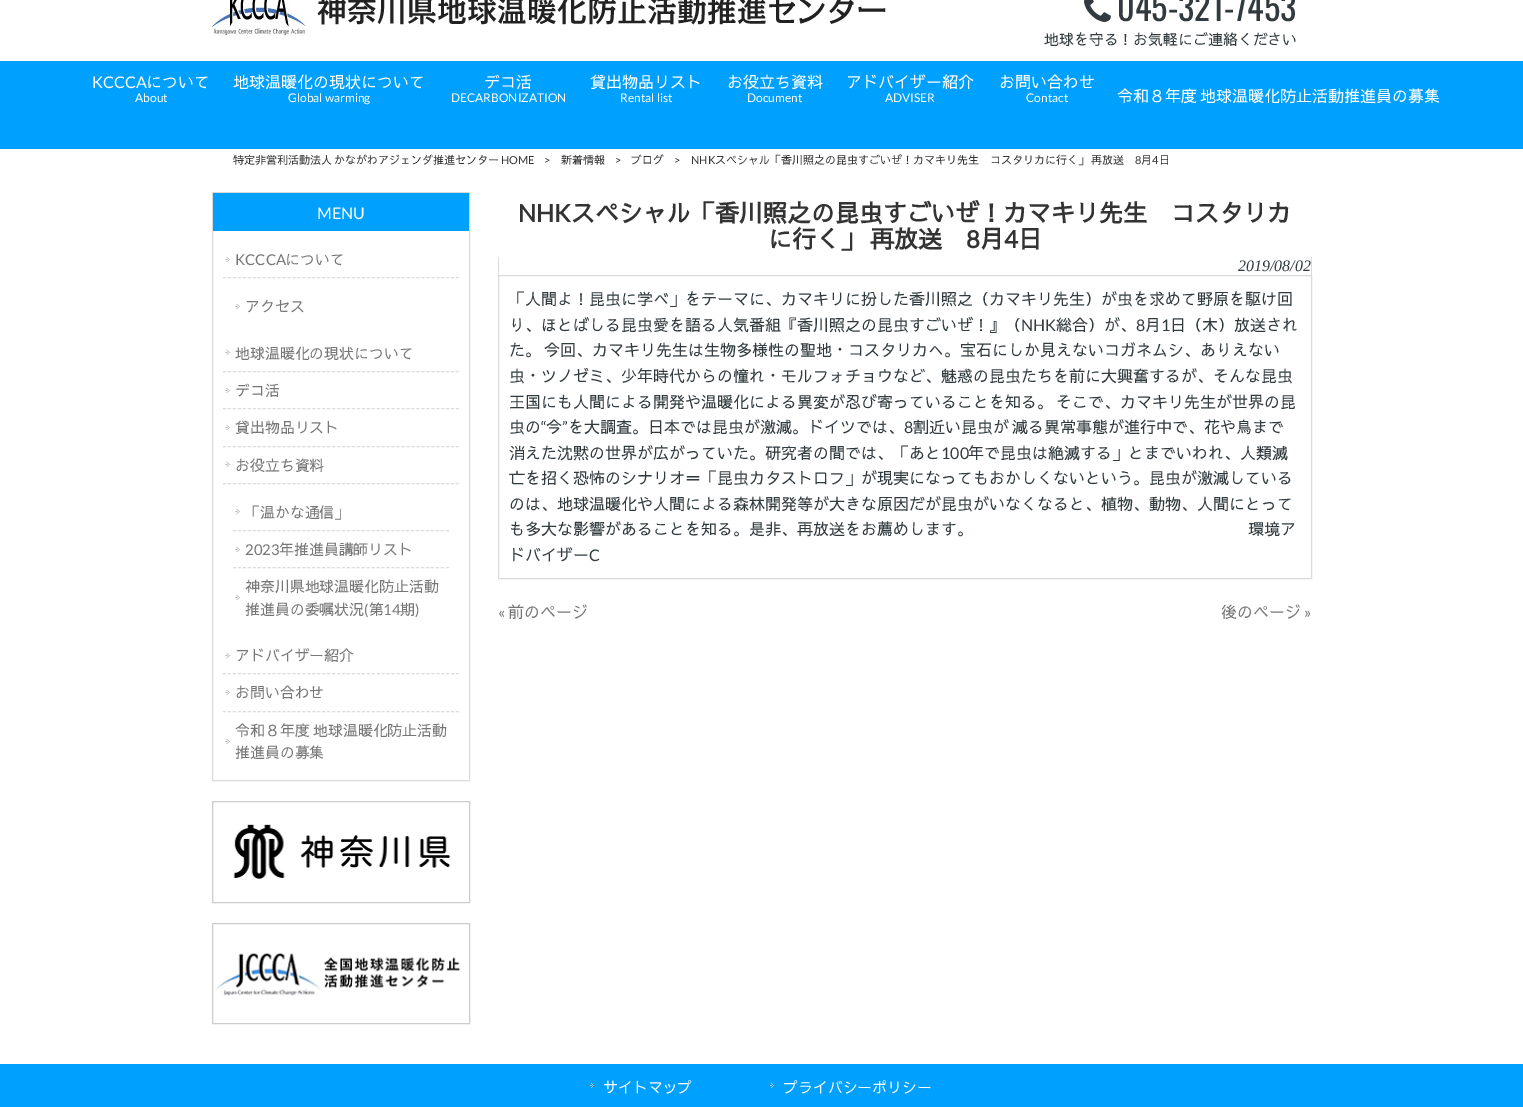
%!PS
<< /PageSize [1523 1107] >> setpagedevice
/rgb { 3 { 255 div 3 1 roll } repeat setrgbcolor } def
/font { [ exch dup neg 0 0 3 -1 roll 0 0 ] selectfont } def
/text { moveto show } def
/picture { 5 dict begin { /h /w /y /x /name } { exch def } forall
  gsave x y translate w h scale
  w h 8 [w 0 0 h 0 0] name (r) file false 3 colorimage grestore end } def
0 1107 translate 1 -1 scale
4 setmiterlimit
255 255 255 rgb
0 0 1523 1107 rectfill
(img_01.rgb) 212 0 674 36 picture
(img_02.rgb) 1084 0 27 22 picture
0 160 255 rgb
0 61 1523 88 rectfill
218 218 218 rgb
212.5 192.5 257 588 rectstroke
0 160 255 rgb
213 193 256 38 rectfill
(img_03.rgb) 225 257 5 5 picture
220 220 220 rgb
[3 1.96] 0 setdash
223 277.5 moveto 236 0 rlineto stroke
(img_03.rgb) 235 304 5 5 picture
(img_03.rgb) 225 350 5 5 picture
223 371.5 moveto 236 0 rlineto stroke
(img_03.rgb) 225 388 5 5 picture
223 408.5 moveto 236 0 rlineto stroke
(img_03.rgb) 225 425 5 5 picture
223 446.5 moveto 236 0 rlineto stroke
(img_03.rgb) 225 462 5 5 picture
223 483.5 moveto 236 0 rlineto stroke
(img_03.rgb) 235 509 5 5 picture
[3 1.95] 0 setdash
233 530.5 moveto 216 0 rlineto stroke
(img_03.rgb) 235 547 5 5 picture
233 567.5 moveto 216 0 rlineto stroke
(img_03.rgb) 235 595 5 5 picture
(img_03.rgb) 225 653 5 5 picture
[3 1.96] 0 setdash
223 673.5 moveto 236 0 rlineto stroke
(img_03.rgb) 225 690 5 5 picture
223 711.5 moveto 236 0 rlineto stroke
(img_03.rgb) 225 739 5 5 picture
204 204 204 rgb
[] 0 setdash
212.5 801.5 257 101 rectstroke
(img_04.rgb) 233 824 218 55 picture
212.5 923.5 257 100 rectstroke
(img_05.rgb) 215 952 246 44 picture
218 218 218 rgb
1311 257 1 18 rectfill
498 257 1 18 rectfill
498.5 275.5 813 303 rectstroke
0 160 255 rgb
0 1064 1523 43 rectfill
(img_06.rgb) 590 1083 4 5 picture
(img_06.rgb) 770 1083 4 5 picture
/Oswald-Regular 34.25 font
49 59 63 rgb
(045-321-7453) 1117 21 text
/SawarabiGothic-Regular 14.9 font
(地球を守る！お気軽にご連絡ください) 1044 45 text
/Lato-Regular 16 font
255 255 255 rgb
(KCCCA) 92 88 text
/SawarabiGothic-Regular 16 font
(について) 146 88 text
/Lato-Regular 12 font
(About) 135 102 text
/SawarabiGothic-Regular 16 font
(地球温暖化の現状について) 233 88 text
/Lato-Regular 12 font
(Global warming) 288 102 text
/SawarabiGothic-Regular 16 font
(デコ活) 484 88 text
/Lato-Regular 12 font
(DECARBONIZATION) 451 102 text
/SawarabiGothic-Regular 16 font
(貸出物品リスト) 590 88 text
/Lato-Regular 12 font
(Rental list) 620 102 text
/SawarabiGothic-Regular 16 font
(お役立ち資料) 727 88 text
/Lato-Regular 12 font
(Document) 747 102 text
/SawarabiGothic-Regular 16 font
(アドバイザー紹介) 846 88 text
/Lato-Regular 12 font
(ADVISER) 885 102 text
/SawarabiGothic-Regular 16 font
(お問い合わせ) 999 88 text
/Lato-Regular 12 font
(Contact) 1026 102 text
/SawarabiGothic-Regular 16 font
1117 102 moveto -2 0 32 (令和８年度 地球温暖化防止活動推進員の募集) widthshow
/SawarabiGothic-Regular 11 font
51 51 51 rgb
233 164 moveto -1 0 32 (特定非営利活動法人 かながわアジェンダ推進センター) widthshow
/Lato-Regular 11 font
(HOME) 501 164 text
(>) 544 164 text
/SawarabiGothic-Regular 11 font
(新着情報) 561 164 text
/Lato-Regular 11 font
(>) 615 164 text
/SawarabiGothic-Regular 11 font
(ブログ) 631 164 text
/Lato-Regular 11 font
(>) 674 164 text
(NHK) 691 164 text
/SawarabiGothic-Regular 11 font
715 164 moveto -1 0 32 (スペシャル「香川照之の昆虫すごいぜ！カマキリ先生　コスタリカに行く」 再放送) widthshow
/Lato-Regular 11 font
(8) 1135 164 text
/SawarabiGothic-Regular 11 font
(月) 1141 164 text
/Lato-Regular 11 font
(4) 1152 164 text
/SawarabiGothic-Regular 11 font
(日) 1159 164 text
/Lato-Regular 16 font
255 255 255 rgb
(MENU) 317 219 text
/Lato-Regular 14.9 font
119 119 119 rgb
(KCCCA) 235 265 text
/SawarabiGothic-Regular 14.9 font
(について) 285 265 text
(アクセス) 245 312 text
(地球温暖化の現状について) 235 359 text
(デコ活) 235 396 text
(貸出物品リスト) 235 433 text
(お役立ち資料) 235 471 text
(「温かな通信」) 245 518 text
/Lato-Regular 14.9 font
(2023) 245 555 text
/SawarabiGothic-Regular 14.9 font
(年推進員講師リスト) 279 555 text
(神奈川県地球温暖化防止活動) 245 592 text
(推進員の委嘱状況 第) 245 615 text
(期) 400 615 text
/Lato-Regular 14.9 font
(\() 364 615 text
(14) 383 615 text
(\)) 415 615 text
/SawarabiGothic-Regular 14.9 font
(アドバイザー紹介) 235 661 text
(お問い合わせ) 235 698 text
235 736 moveto -1 0 32 (令和８年度 地球温暖化防止活動) widthshow
(推進員の募集) 235 758 text
/Lato-Bold 24 font
51 51 51 rgb
(NHK) 518 222 text
/SawarabiGothic-Bold 24 font
(スペシャル「香川照之の昆虫すごいぜ！カマキリ先生　コスタリカ) 571 222 text
768 248 moveto -1 0 32 (に行く」 再放送) widthshow
/Lato-Bold 24 font
(8) 966 248 text
/SawarabiGothic-Bold 24 font
(月) 980 248 text
/Lato-Bold 24 font
(4) 1004 248 text
/SawarabiGothic-Bold 24 font
(日) 1018 248 text
/LiberationSerif-Italic 16 font
49 59 63 rgb
(2019/08/02) 1238 271 text
/SawarabiGothic-Regular 16 font
(「人間よ！昆虫に学べ」をテーマに、カマキリに扮した香川照之（カマキリ先生）が虫を求めて野原を駆け回) 509 305 text
(り、ほとばしる昆虫愛を語る人気番組『香川照之の昆虫すごいぜ！』（) 509 331 text
/Lato-Regular 16 font
(NHK) 1021 331 text
/SawarabiGothic-Regular 16 font
(総合）が、) 1056 331 text
/Lato-Regular 16 font
(8) 1136 331 text
/SawarabiGothic-Regular 16 font
(月) 1145 331 text
/Lato-Regular 16 font
(1) 1161 331 text
/SawarabiGothic-Regular 16 font
(日（木）放送され) 1170 331 text
509 356 moveto -2 0 32 (た。 今回、カマキリ先生は生物多様性の聖地・コスタリカへ。宝石にしか見えないコガネムシ、ありえない) widthshow
(虫・ツノゼミ、少年時代からの憧れ・モルフォチョウなど、魅惑の昆虫たちを前に大興奮するが、そんな昆虫) 509 382 text
509 408 moveto -2 0 32 (王国にも人間による開発や温暖化による異変が忍び寄っていることを知る。 そこで、カマキリ先生が世界の昆) widthshow
(虫の) 509 433 text
/Lato-Regular 16 font
(“) 541 433 text
/SawarabiGothic-Regular 16 font
(今) 546 433 text
/Lato-Regular 16 font
(”) 562 433 text
/SawarabiGothic-Regular 16 font
(を大調査。日本では昆虫が激減。ドイツでは、) 568 433 text
/Lato-Regular 16 font
(8) 904 433 text
/SawarabiGothic-Regular 16 font
913 433 moveto -2 0 32 (割近い昆虫が 減る異常事態が進行中で、花や鳥まで) widthshow
(消えた沈黙の世界が広がっていた。研究者の間では、「あと) 509 459 text
/Lato-Regular 16 font
(100) 941 459 text
/SawarabiGothic-Regular 16 font
(年で昆虫は絶滅する」とまでいわれ、人類滅) 968 459 text
(亡を招く恐怖のシナリオ＝「昆虫カタストロフ」が現実になってもおかしくないという。昆虫が激減している) 509 484 text
(のは、地球温暖化や人間による森林開発等が大きな原因だが昆虫がいなくなると、植物、動物、人間にとって) 509 510 text
(も多大な影響があることを知る。是非、再放送をお薦めします。) 509 535 text
(環境ア) 1248 535 text
(ドバイザー) 509 561 text
/Lato-Regular 16 font
(C) 589 561 text
119 119 119 rgb
(«) 498 618 text
/SawarabiGothic-Regular 16 font
(前のページ) 508 618 text
(後のページ) 1221 618 text
/Lato-Regular 16 font
(») 1304 618 text
/SawarabiGothic-Regular 14.9 font
255 255 255 rgb
(サイトマップ) 603 1093 text
(プライバシーポリシー) 783 1093 text
showpage
